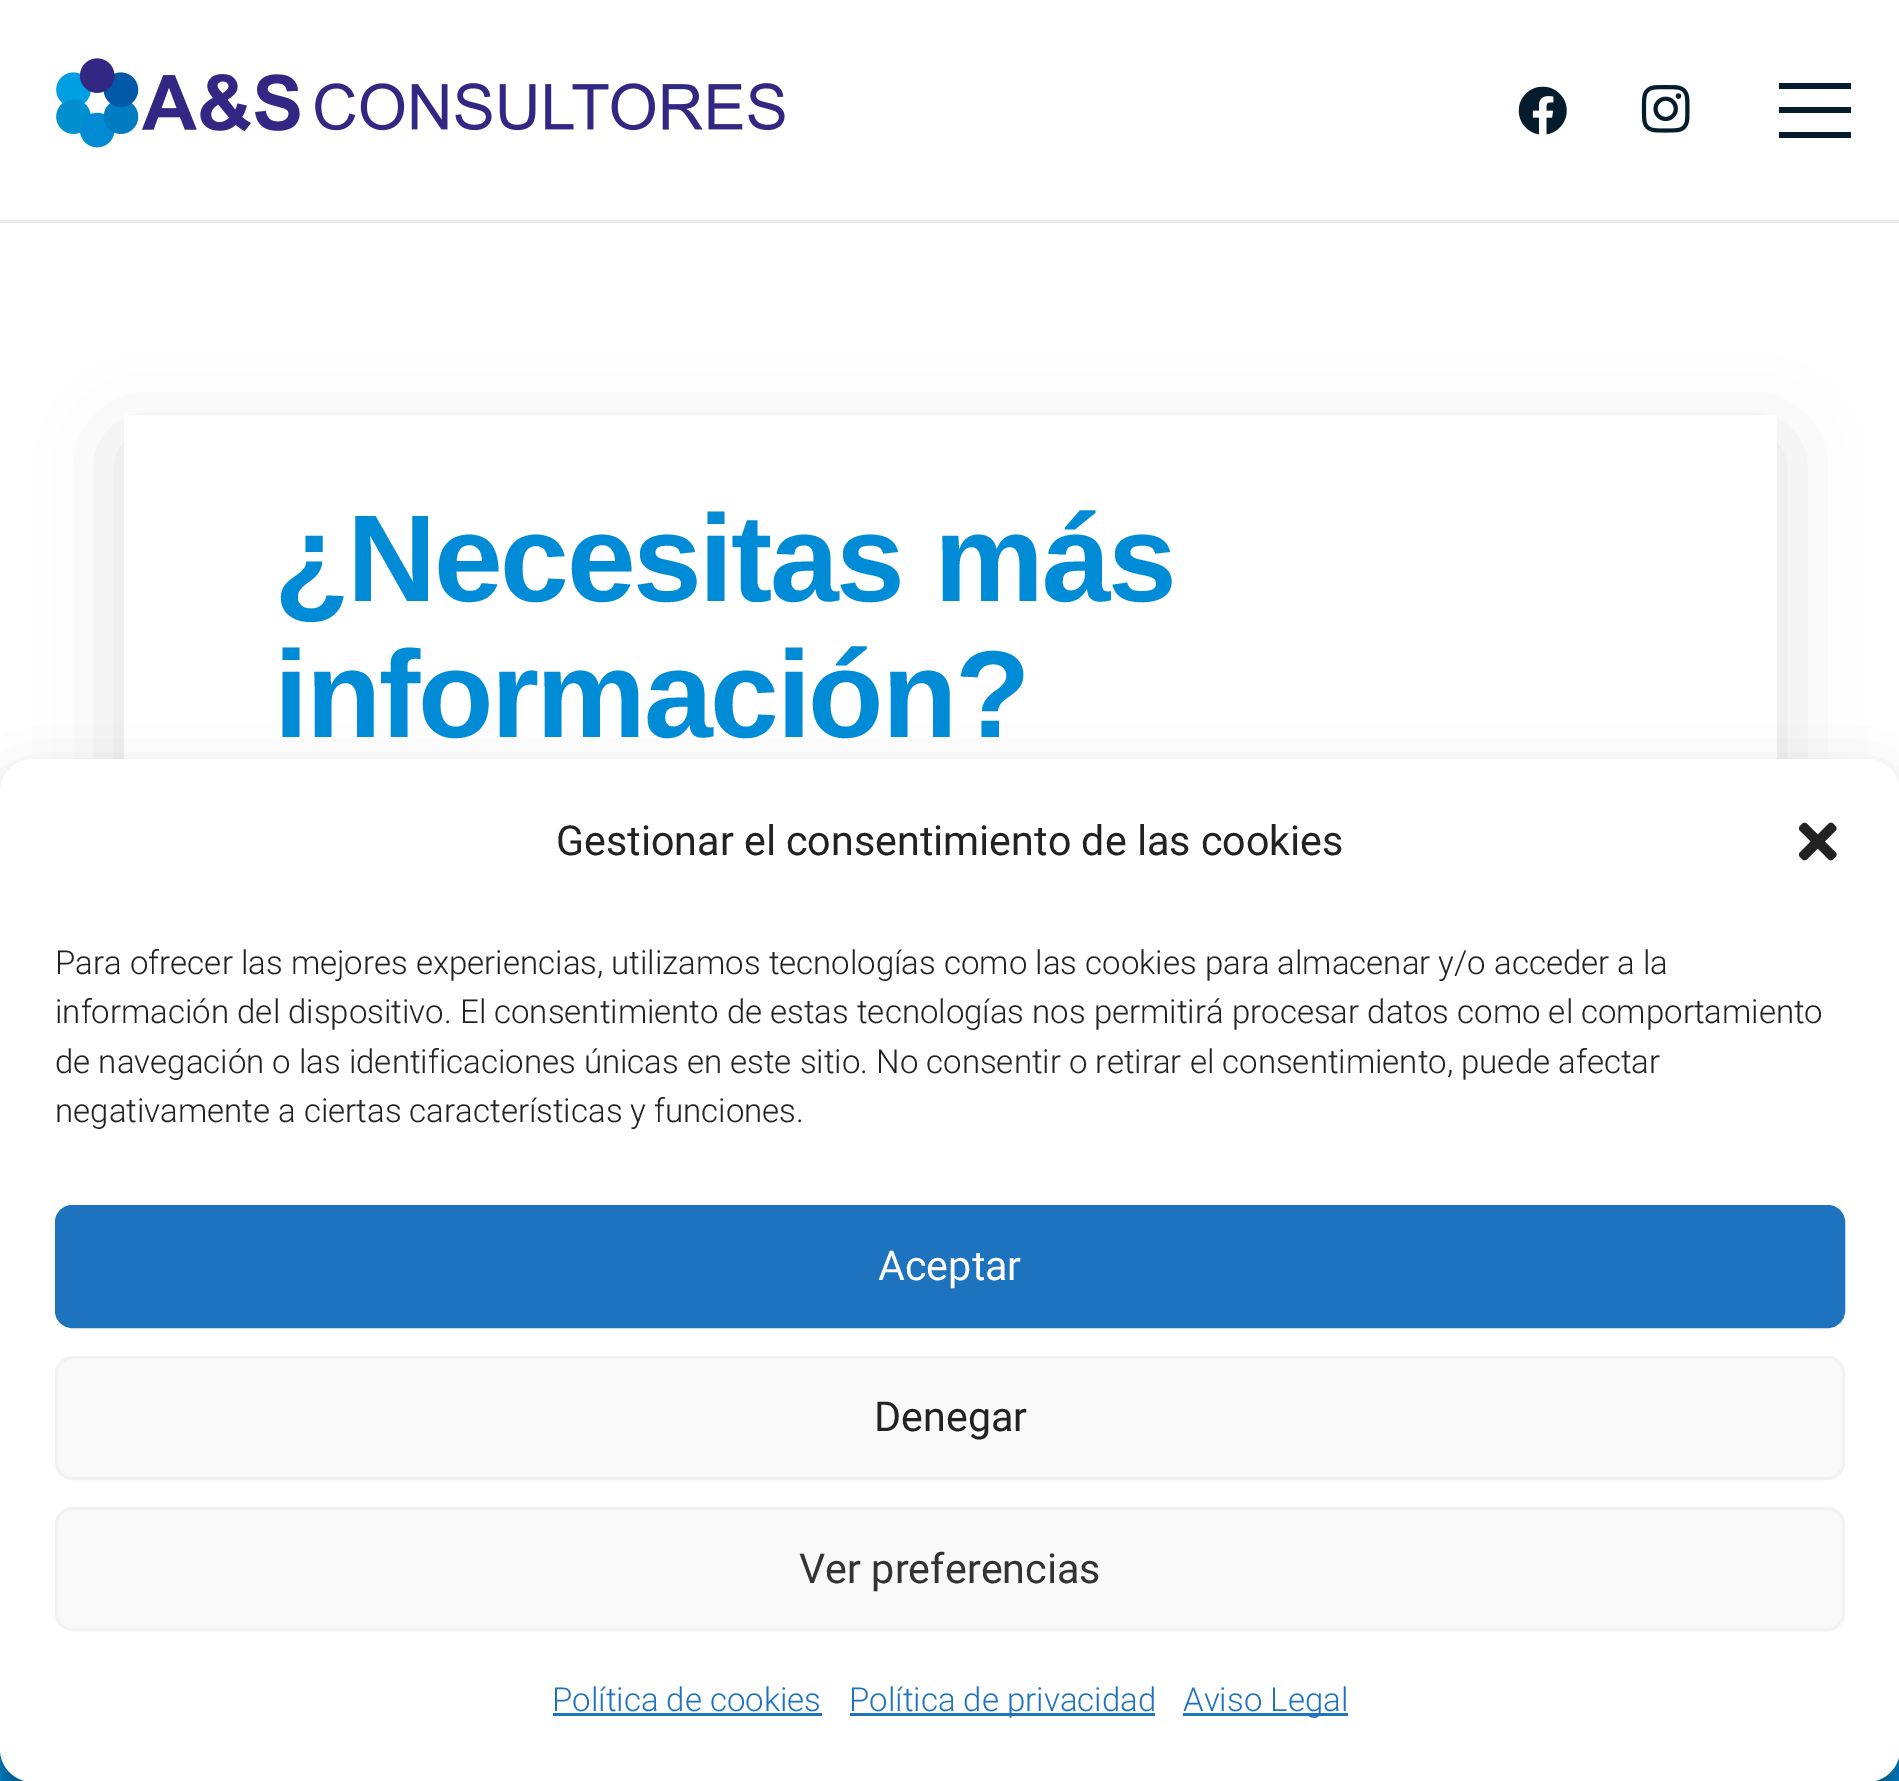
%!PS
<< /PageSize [1899 1781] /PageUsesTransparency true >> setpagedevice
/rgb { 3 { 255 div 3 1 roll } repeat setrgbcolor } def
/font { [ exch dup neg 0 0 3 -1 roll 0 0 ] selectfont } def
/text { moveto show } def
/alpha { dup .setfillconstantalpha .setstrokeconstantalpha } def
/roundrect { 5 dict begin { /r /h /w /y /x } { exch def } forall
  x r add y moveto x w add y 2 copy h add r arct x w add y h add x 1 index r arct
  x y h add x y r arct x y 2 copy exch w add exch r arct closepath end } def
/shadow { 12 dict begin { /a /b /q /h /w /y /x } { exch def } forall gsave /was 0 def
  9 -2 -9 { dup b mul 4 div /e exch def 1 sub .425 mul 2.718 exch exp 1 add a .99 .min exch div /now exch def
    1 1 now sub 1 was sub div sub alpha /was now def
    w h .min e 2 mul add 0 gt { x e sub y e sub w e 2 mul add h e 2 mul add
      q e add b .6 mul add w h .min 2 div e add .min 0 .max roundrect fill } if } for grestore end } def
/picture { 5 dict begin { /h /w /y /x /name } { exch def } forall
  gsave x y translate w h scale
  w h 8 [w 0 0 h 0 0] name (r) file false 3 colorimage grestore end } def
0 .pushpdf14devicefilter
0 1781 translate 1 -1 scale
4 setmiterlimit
255 255 255 rgb
0 0 1899 1781 rectfill
235 235 235 rgb
0 220 1899 3 rectfill
(img_01.rgb) 56 58 729 90 picture
(img_02.rgb) 1518 86 49 49 picture
(img_03.rgb) 1641 85 49 48 picture
5 28 44 rgb
1779 107 72 6 rectfill
1779 83 72 6 rectfill
1779 132 72 6 rectfill
0 0 0 rgb
124 443 1653 896 0 41 0.12 shadow
255 255 255 rgb
124 415 1653 344 rectfill
0 139 214 rgb
0 1749 1899 32 rectfill
0 0 0 rgb
0 776 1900 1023 33 8 0.23 shadow
0 787 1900 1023 33 27.5 0.19 shadow
255 255 255 rgb
0 759 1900 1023 33 roundrect fill
(img_04.rgb) 1798 822 39 39 picture
30 115 190 rgb
56.5 1206.5 1787 120 15.5 roundrect gsave fill grestore
3 setlinewidth
stroke
249 249 249 rgb
56.5 1357.5 1787 121 15.5 roundrect gsave fill grestore
242 242 242 rgb
stroke
249 249 249 rgb
56.5 1508.5 1787 121 15.5 roundrect gsave fill grestore
242 242 242 rgb
stroke
30 115 190 rgb
553 1713 269 3 rectfill
850 1713 305 3 rectfill
1183 1713 165 3 rectfill
/LiberationSans-Bold 123.75 font
0 139 214 rgb
274 601 moveto -2.5 0 (¿Necesitas más) ashow
274 737 moveto -2.5 0 (información?) ashow
/Roboto-Regular 41.25 font
34 34 34 rgb
(Gestionar el consentimiento de las cookies) 556 855 text
/Roboto-Light 33 font
(Para ofrecer las mejores experiencias, utilizamos tecnologías como las cookies para almacenar y/o acceder a la) 55 974 text
(información del dispositivo. El consentimiento de estas tecnologías nos permitirá procesar datos como el comportamiento) 55 1023 text
(de navegación o las identificaciones únicas en este sitio. No consentir o retirar el consentimiento, puede afectar) 55 1073 text
(negativamente a ciertas características y funciones.) 55 1122 text
/Roboto-Regular 41.25 font
255 255 255 rgb
(Aceptar) 878 1280 text
34 34 34 rgb
(Denegar) 874 1431 text
51 51 51 rgb
(Ver preferencias) 799 1583 text
/Roboto-Light 33 font
30 115 190 rgb
(Política de cookies) 552 1711 text
(Política de privacidad) 849 1711 text
(Aviso Legal) 1183 1711 text
.poppdf14devicefilter showpage
